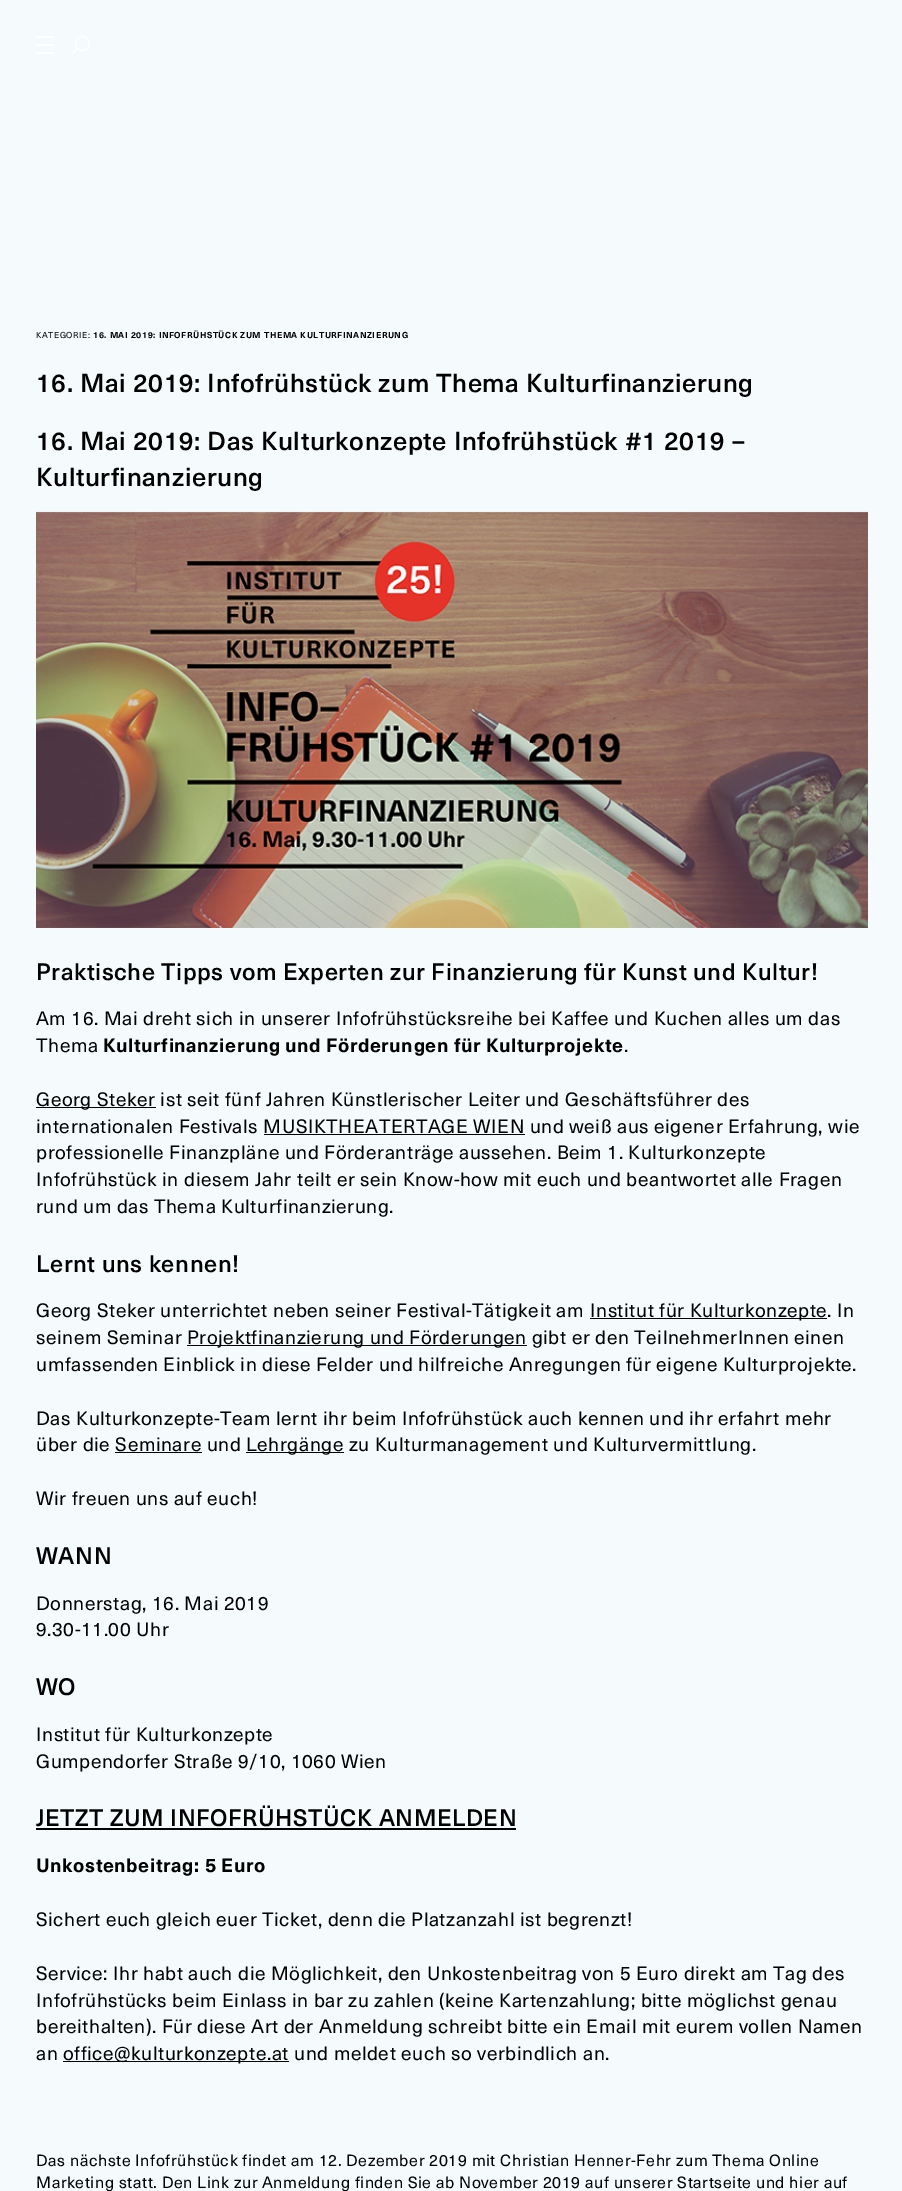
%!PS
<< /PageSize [902 2191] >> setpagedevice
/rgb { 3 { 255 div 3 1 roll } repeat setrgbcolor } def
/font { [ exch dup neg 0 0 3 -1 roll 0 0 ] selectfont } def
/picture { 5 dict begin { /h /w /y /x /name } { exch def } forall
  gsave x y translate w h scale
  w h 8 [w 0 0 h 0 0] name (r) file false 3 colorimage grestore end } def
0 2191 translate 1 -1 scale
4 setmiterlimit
245 250 252 rgb
0 0 902 2191 rectfill
255 255 255 rgb
36 36 18 2 rectfill
36 44 18 2 rectfill
36 52 18 2 rectfill
(img_01.rgb) 72 36 18 18 picture
(img_02.rgb) 36 511 832 417 picture
0 0 0 rgb
36 1107 120 1 rectfill
264 1134 261 1 rectfill
590 1318 237 1 rectfill
187 1345 340 1 rectfill
246 1452 98 1 rectfill
115 1452 87 1 rectfill
36 1828 480 2 rectfill
63 2061 226 1 rectfill
/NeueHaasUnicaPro-Regular 8.5 font
36 338 moveto 0.56 0 (KATEGORIE:) ashow
/NeueHaasUnicaPro-Bold 8.5 font
93 338 moveto 0.56 0 (16. MAI 2019: INFOFRÜHSTÜCK ZUM THEMA KULTURFINANZIERUNG) ashow
/NeueHaasUnicaPro-Medium 25.5 font
36 392 moveto 0.56 0 (16. Mai 2019: Infofrühstück zum Thema Kulturfinanzierung) ashow
36 450 moveto 0.56 0 (16. Mai 2019: Das Kulturkonzepte Infofrühstück #1 2019 –) ashow
36 486 moveto 0.56 0 (Kulturfinanzierung) ashow
/NeueHaasUnicaPro-Medium 23.4 font
36 980 moveto 0.56 0 (Praktische Tipps vom Experten zur Finanzierung für Kunst und Kultur!) ashow
/NeueHaasUnicaPro-Regular 19.1 font
36 1025 moveto 0.56 0 (Am 16. Mai dreht sich in unserer Infofrühstücksreihe bei Kaffee und Kuchen alles um das) ashow
36 1052 moveto 0.56 0 (Thema) ashow
/NeueHaasUnicaPro-Bold 19.1 font
103 1052 moveto 0.56 0 (Kulturfinanzierung und Förderungen für Kulturprojekte) ashow
/NeueHaasUnicaPro-Regular 19.1 font
624 1052 moveto 0.56 0 (.) ashow
36 1106 moveto 0.56 0 (Georg Steker ist seit fünf Jahren Künstlerischer Leiter und Geschäftsführer des) ashow
36 1133 moveto 0.56 0 (internationalen Festivals MUSIKTHEATERTAGE WIEN und weiß aus eigener Erfahrung, wie) ashow
36 1159 moveto 0.56 0 (professionelle Finanzpläne und Förderanträge aussehen. Beim 1. Kulturkonzepte) ashow
36 1186 moveto 0.56 0 (Infofrühstück in diesem Jahr teilt er sein Know-how mit euch und beantwortet alle Fragen) ashow
36 1213 moveto 0.56 0 (rund um das Thema Kulturfinanzierung.) ashow
/NeueHaasUnicaPro-Medium 23.4 font
36 1272 moveto 0.56 0 (Lernt uns kennen!) ashow
/NeueHaasUnicaPro-Regular 19.1 font
36 1317 moveto 0.56 0 (Georg Steker unterrichtet neben seiner Festival-Tätigkeit am) ashow
590 1317 moveto 0.56 0 (Institut für Kulturkonzepte. In) ashow
36 1344 moveto 0.56 0 (seinem Seminar) ashow
187 1344 moveto 0.56 0 (Projektfinanzierung und Förderungen gibt er den TeilnehmerInnen einen) ashow
36 1371 moveto 0.56 0 (umfassenden Einblick in diese Felder und hilfreiche Anregungen für eigene Kulturprojekte.) ashow
36 1425 moveto 0.56 0 (Das Kulturkonzepte-Team lernt ihr beim Infofrühstück auch kennen und ihr erfahrt mehr) ashow
36 1451 moveto 0.56 0 (über die Seminare und) ashow
246 1451 moveto 0.56 0 (Lehrgänge zu Kulturmanagement und Kulturvermittlung.) ashow
36 1505 moveto 0.56 0 (Wir freuen uns auf euch!) ashow
/NeueHaasUnicaPro-Medium 23.4 font
36 1564 moveto 0.56 0 (WANN) ashow
/NeueHaasUnicaPro-Regular 19.1 font
36 1610 moveto 0.56 0 (Donnerstag, 16. Mai 2019) ashow
36 1636 moveto 0.56 0 (9.30-11.00 Uhr) ashow
/NeueHaasUnicaPro-Medium 23.4 font
36 1695 moveto 0.56 0 (WO) ashow
/NeueHaasUnicaPro-Regular 19.1 font
36 1741 moveto 0.56 0 (Institut für Kulturkonzepte) ashow
36 1768 moveto 0.56 0 (Gumpendorfer Straße 9/10, 1060 Wien) ashow
/NeueHaasUnicaPro-Medium 23.4 font
36 1826 moveto 0.56 0 (JETZT ZUM INFOFRÜHSTÜCK ANMELDEN) ashow
/NeueHaasUnicaPro-Bold 19.1 font
36 1872 moveto 0.56 0 (Unkostenbeitrag: 5 Euro) ashow
/NeueHaasUnicaPro-Regular 19.1 font
36 1926 moveto 0.56 0 (Sichert euch gleich euer Ticket, denn die Platzanzahl ist begrenzt!) ashow
36 1980 moveto 0.56 0 (Service: Ihr habt auch die Möglichkeit, den Unkostenbeitrag von 5 Euro direkt am Tag des) ashow
36 2007 moveto 0.56 0 (Infofrühstücks beim Einlass in bar zu zahlen \(keine Kartenzahlung; bitte möglichst genau) ashow
36 2033 moveto 0.56 0 (bereithalten\). Für diese Art der Anmeldung schreibt bitte ein Email mit eurem vollen Namen) ashow
36 2060 moveto 0.56 0 (an) ashow
63 2060 moveto 0.56 0 (office@kulturkonzepte.at und meldet euch so verbindlich an.) ashow
/NeueHaasUnicaPro-Regular 16 font
36 2166 moveto 0.56 0 (Das nächste Infofrühstück findet am 12. Dezember 2019 mit Christian Henner-Fehr zum Thema Online) ashow
36 2188 moveto 0.56 0 (Marketing statt. Den Link zur Anmeldung finden Sie ab November 2019 auf unserer Startseite und hier auf) ashow
showpage
